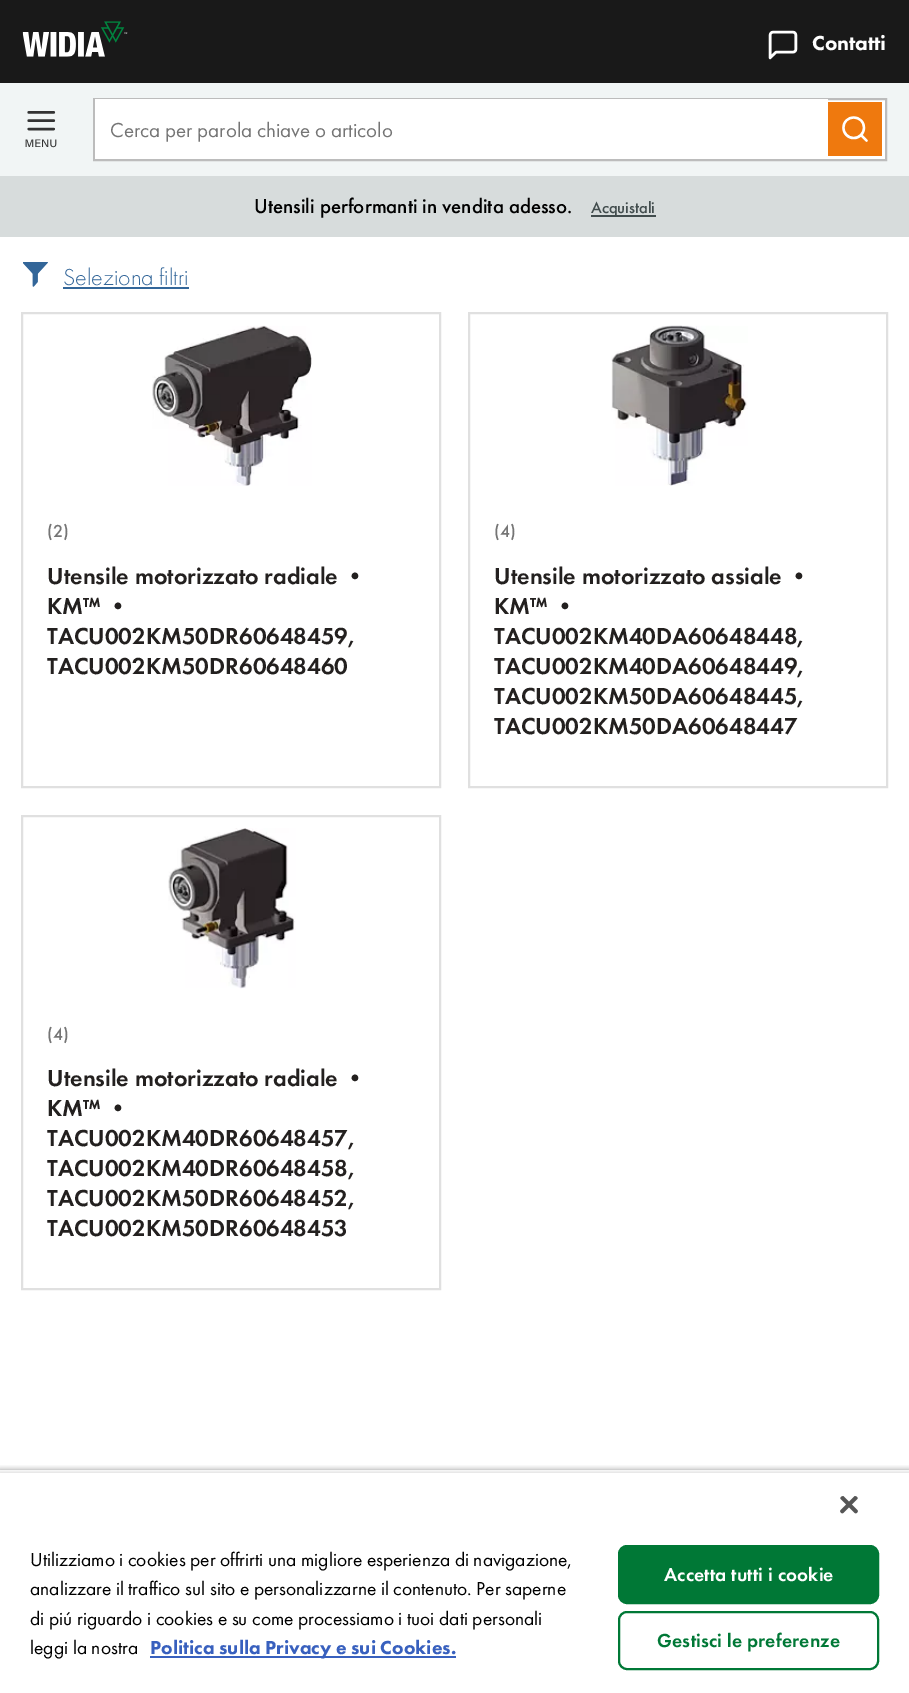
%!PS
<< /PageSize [909 1693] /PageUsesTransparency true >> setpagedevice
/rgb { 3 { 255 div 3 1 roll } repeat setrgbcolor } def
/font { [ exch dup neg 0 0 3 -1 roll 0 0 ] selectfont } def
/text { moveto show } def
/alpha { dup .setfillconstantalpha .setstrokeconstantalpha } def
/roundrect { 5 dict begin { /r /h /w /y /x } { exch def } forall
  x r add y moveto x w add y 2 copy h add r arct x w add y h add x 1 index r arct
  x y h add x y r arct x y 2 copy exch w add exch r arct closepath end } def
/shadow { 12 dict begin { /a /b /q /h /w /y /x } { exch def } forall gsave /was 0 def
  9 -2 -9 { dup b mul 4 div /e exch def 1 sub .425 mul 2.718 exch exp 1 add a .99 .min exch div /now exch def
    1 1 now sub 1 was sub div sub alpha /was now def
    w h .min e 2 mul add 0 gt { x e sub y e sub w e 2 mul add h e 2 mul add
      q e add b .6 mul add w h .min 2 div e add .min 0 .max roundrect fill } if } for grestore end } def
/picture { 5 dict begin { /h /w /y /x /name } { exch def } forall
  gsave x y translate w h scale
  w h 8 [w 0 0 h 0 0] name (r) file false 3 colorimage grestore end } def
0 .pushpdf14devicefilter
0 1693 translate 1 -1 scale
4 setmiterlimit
255 255 255 rgb
0 0 909 1693 rectfill
25 25 25 rgb
0 0 909 83 rectfill
(img_01.rgb) 22 21 106 36 picture
(img_02.rgb) 768 30 30 30 picture
241 245 245 rgb
0 83 909 93 rectfill
(img_03.rgb) 25 111 32 37 picture
255 255 255 rgb
828 100 57 59 rectfill
188 188 188 rgb
2 setlinewidth
94 99 792 61 rectstroke
255 255 255 rgb
95 99 733 60 rectfill
239 121 14 rgb
828 102 54 54 rectfill
(img_04.rgb) 842 116 26 26 picture
215 220 220 rgb
0 176 909 61 rectfill
66 77 78 rgb
591 215 65 2 rectfill
(img_05.rgb) 23 262 25 25 picture
51 102 153 rgb
63 287 126 2 rectfill
224 224 224 rgb
22 313 418 474 rectstroke
(img_06.rgb) 152 325 160 161 picture
469 313 418 474 rectstroke
(img_07.rgb) 611 325 137 161 picture
22 816 418 473 rectstroke
(img_08.rgb) 168 828 128 161 picture
gsave
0 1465 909 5 rectclip
0 0 0 rgb
0 1470 909 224 0 3 0.35 shadow
grestore
0 0 0 rgb
0 1473 909 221 0 3 0.2 shadow
255 255 255 rgb
0 1473 909 220 rectfill
(img_09.rgb) 840 1496 18 18 picture
56 96 190 rgb
150 1656 306 2 rectfill
0 120 54 rgb
619 1546 259 57 8 roundrect gsave fill grestore
stroke
619 1612 259 57 8 roundrect stroke
/FuturaPT-Black 21 font
255 255 255 rgb
(Contatti) 812 50 text
/FuturaPT-Regular 21 font
117 117 117 rgb
(Cerca per parola chiave o articolo) 110 137 text
/FuturaPT-Medium 21 font
0 0 0 rgb
(Utensili performanti in vendita adesso.) 254 213 text
/FuturaPT-Medium 16.5 font
66 77 78 rgb
(Acquistali) 591 213 text
/FuturaPT-Light 24 font
51 102 153 rgb
(Seleziona filtri) 63 285 text
/FuturaPT-Medium 18 font
117 117 117 rgb
(\(2\)) 47 537 text
/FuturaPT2-Medium 24 font
35 32 31 rgb
(Utensile motorizzato radiale •) 47 584 text
(KM™ •) 47 614 text
(TACU002KM50DR60648459,) 47 644 text
(TACU002KM50DR60648460) 47 674 text
/FuturaPT-Medium 18 font
117 117 117 rgb
(\(4\)) 494 537 text
/FuturaPT2-Medium 24 font
35 32 31 rgb
(Utensile motorizzato assiale •) 494 584 text
(KM™ •) 494 614 text
(TACU002KM40DA60648448,) 494 644 text
(TACU002KM40DA60648449,) 494 674 text
(TACU002KM50DA60648445,) 494 704 text
(TACU002KM50DA60648447) 494 734 text
/FuturaPT-Medium 18 font
117 117 117 rgb
(\(4\)) 47 1040 text
/FuturaPT2-Medium 24 font
35 32 31 rgb
(Utensile motorizzato radiale •) 47 1086 text
(KM™ •) 47 1116 text
(TACU002KM40DR60648457,) 47 1146 text
(TACU002KM40DR60648458,) 47 1176 text
(TACU002KM50DR60648452,) 47 1206 text
(TACU002KM50DR60648453) 47 1236 text
/FuturaPT-Regular 19.5 font
0 0 0 rgb
(Utilizziamo i cookies per offrirti una migliore esperienza di navigazione,) 30 1566 text
(analizzare il traffico sul sito e personalizzarne il contenuto. Per saperne) 30 1595 text
(di piú riguardo i cookies e su come processiamo i tuoi dati personali) 30 1625 text
(leggi la nostra) 30 1654 text
/FuturaPT-Black 19.5 font
56 96 190 rgb
(Politica sulla Privacy e sui Cookies.) 150 1654 text
/FuturaPT2-Medium 19.5 font
255 255 255 rgb
664 1581 moveto 0.2 0 (Accetta tutti i cookie) ashow
0 120 54 rgb
657 1647 moveto 0.2 0 (Gestisci le preferenze) ashow
.poppdf14devicefilter showpage
